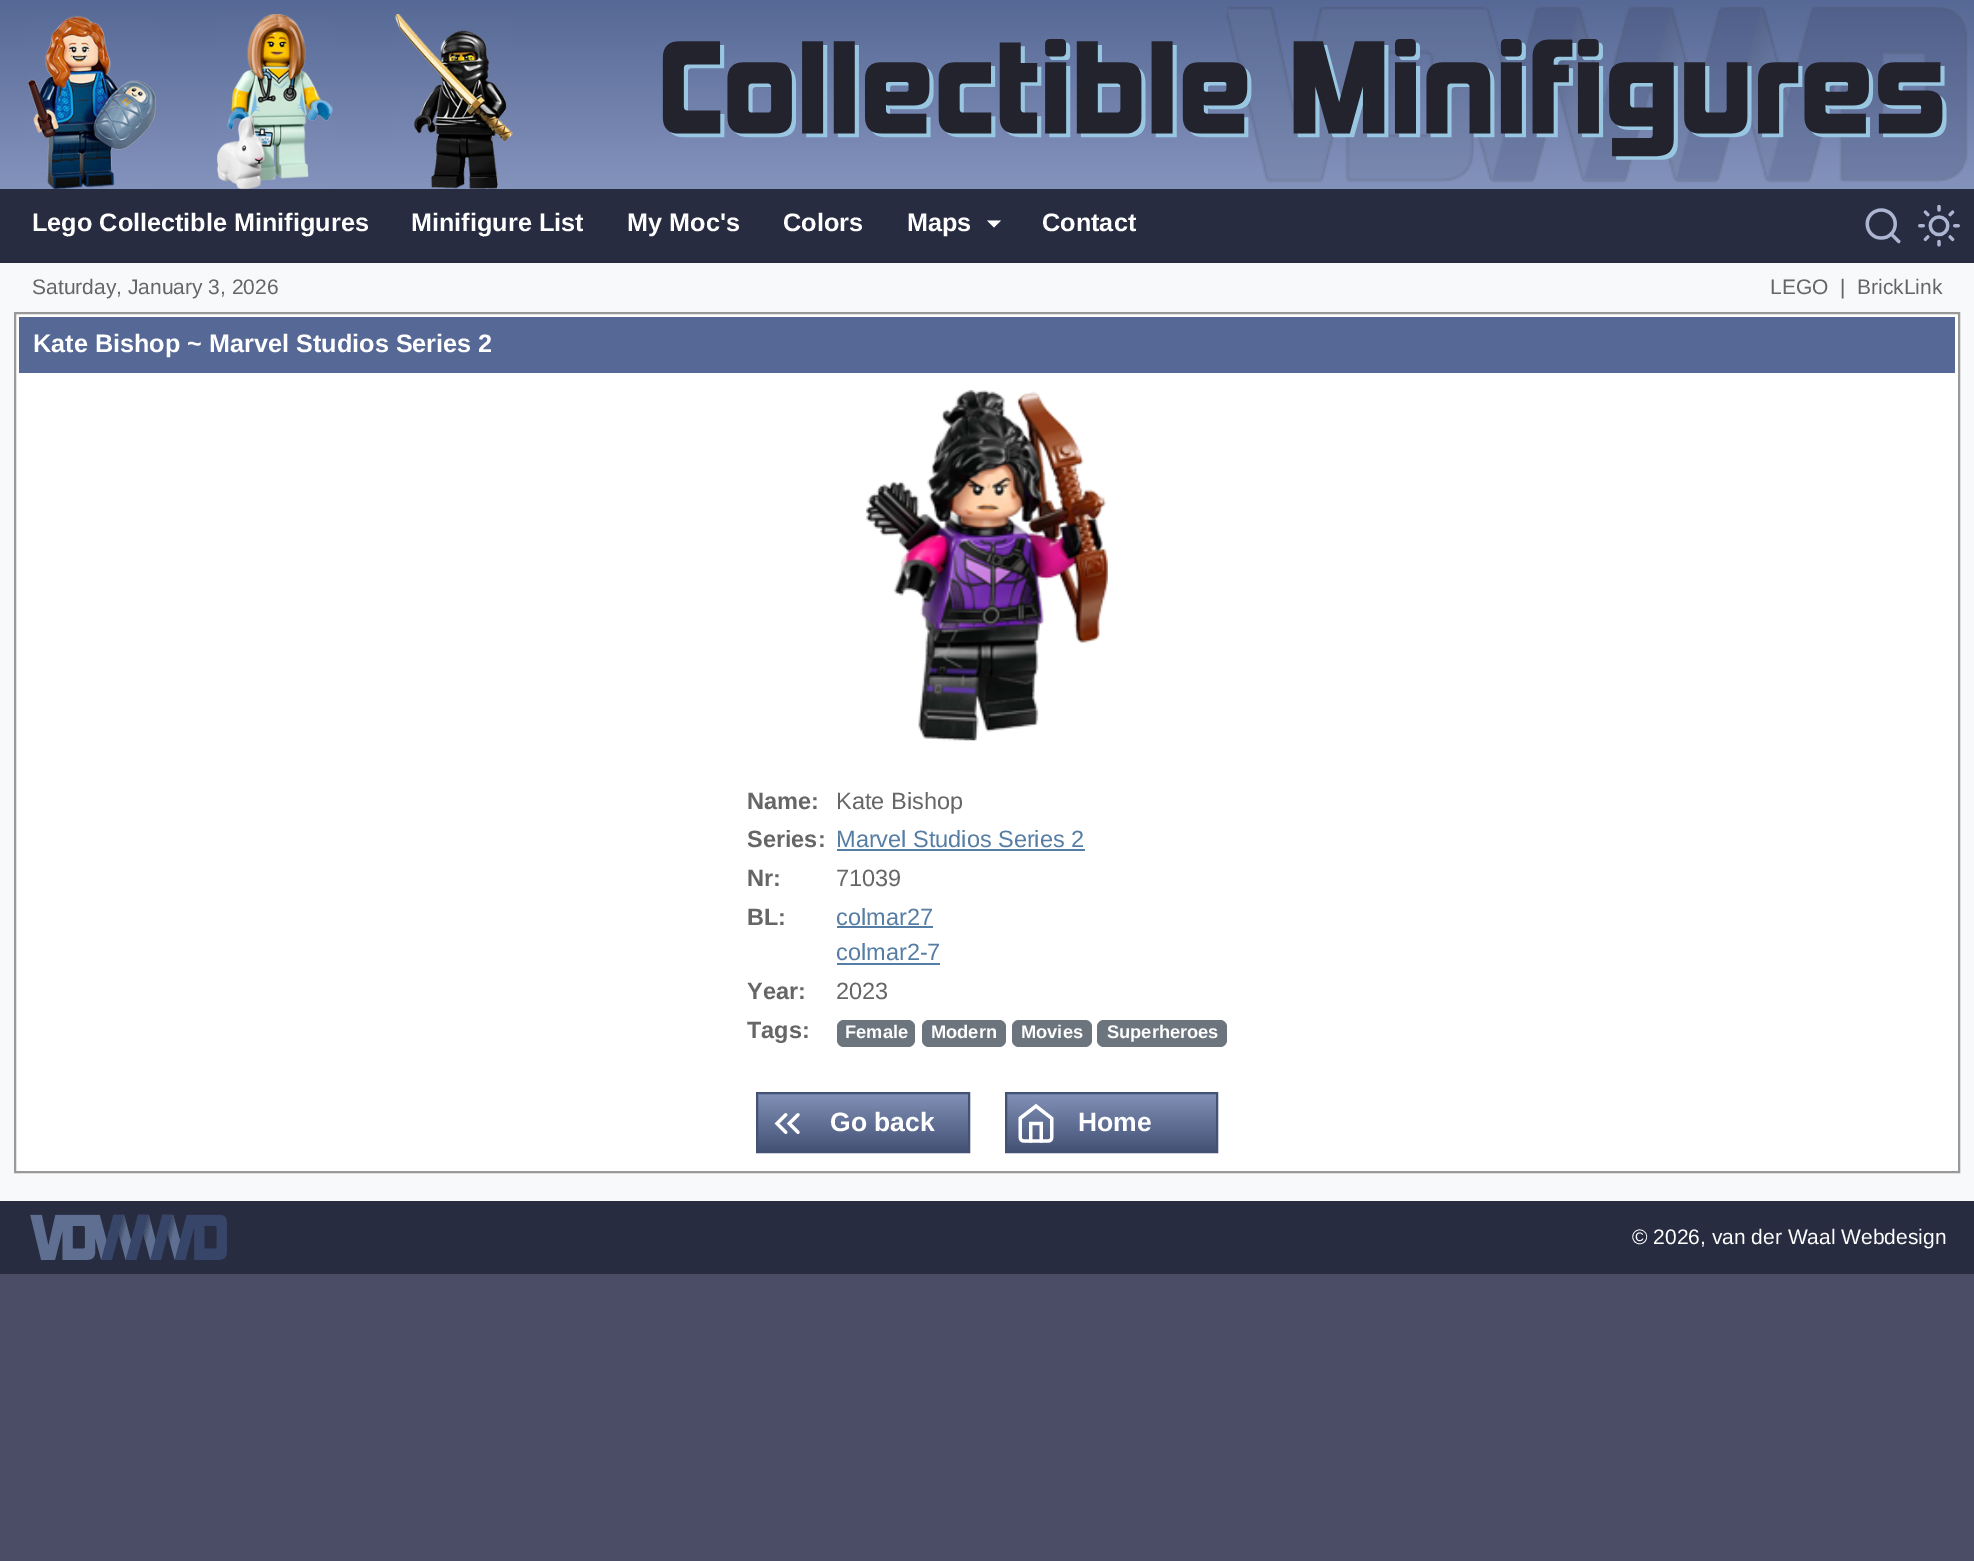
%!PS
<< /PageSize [1974 1561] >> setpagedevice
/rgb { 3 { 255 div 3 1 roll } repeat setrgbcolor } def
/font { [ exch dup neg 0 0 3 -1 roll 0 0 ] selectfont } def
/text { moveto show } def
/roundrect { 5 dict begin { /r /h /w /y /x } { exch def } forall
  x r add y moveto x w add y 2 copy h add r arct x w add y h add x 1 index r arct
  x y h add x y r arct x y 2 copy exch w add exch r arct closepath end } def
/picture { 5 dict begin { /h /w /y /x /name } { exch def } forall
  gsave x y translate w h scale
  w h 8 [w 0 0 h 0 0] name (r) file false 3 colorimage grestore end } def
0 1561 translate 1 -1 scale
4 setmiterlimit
75 77 102 rgb
0 0 1974 1561 rectfill
gsave 0 0 moveto 1974 0 rlineto 0 189 rlineto -1974 0 rlineto closepath clip newpath
<< /ShadingType 2 /ColorSpace /DeviceRGB /Coords [987 0 987 189] /Extend [true true] /Function << /FunctionType 2 /Domain [0 1] /C0 [0.337 0.408 0.584] /C1 [0.518 0.576 0.737] /N 1 >> >> shfill grestore
(img_01.rgb) 28 15 128 174 picture
(img_02.rgb) 217 14 116 175 picture
(img_03.rgb) 395 14 118 175 picture
(img_04.rgb) 1226 6 742 177 picture
(img_05.rgb) 662 39 1285 121 picture
40 44 65 rgb
0 189 1974 74 rectfill
255 255 255 rgb
987 220.5 moveto 14 0 rlineto -7 7 rlineto closepath fill
(img_06.rgb) 1865 208 36 36 picture
(img_07.rgb) 1918 205 42 42 picture
248 249 250 rgb
0 263 1974 938 rectfill
255 255 255 rgb
15 313 moveto 1944 0 rlineto 0 859 rlineto -1944 0 rlineto closepath gsave fill grestore
153 153 153 rgb
2 setlinewidth
stroke
86 104 149 rgb
19 317 1936 56 rectfill
(img_08.rgb) 866 390 242 351 picture
86 125 163 rgb
837 849 248 2 rectfill
837 926 96 2 rectfill
837 963 103 2 rectfill
108 117 125 rgb
837 1020 78 27 7 roundrect fill
922 1020 84 27 7 roundrect fill
1012 1020 80 27 7 roundrect fill
1097 1020 130 27 7 roundrect fill
gsave 758 1094 moveto 210 0 rlineto 0 57 rlineto -210 0 rlineto closepath clip newpath
<< /ShadingType 2 /ColorSpace /DeviceRGB /Coords [863 1094 863 1152] /Extend [true true] /Function << /FunctionType 2 /Domain [0 1] /C0 [0.506 0.565 0.714] /C1 [0.263 0.318 0.459] /N 1 >> >> shfill grestore
67 81 117 rgb
757 1093 212 59 rectstroke
(img_09.rgb) 774 1113 26 21 picture
gsave 1007 1094 moveto 209 0 rlineto 0 57 rlineto -209 0 rlineto closepath clip newpath
<< /ShadingType 2 /ColorSpace /DeviceRGB /Coords [1111 1094 1111 1152] /Extend [true true] /Function << /FunctionType 2 /Domain [0 1] /C0 [0.506 0.565 0.714] /C1 [0.263 0.318 0.459] /N 1 >> >> shfill grestore
1006 1093 211 59 rectstroke
(img_10.rgb) 1018 1103 36 40 picture
40 44 65 rgb
0 1201 1974 73 rectfill
(img_11.rgb) 30 1214 197 46 picture
/LiberationSans-Bold 25.25 font
255 255 255 rgb
(Lego Collectible Minifigures) 32 231 text
(Minifigure List) 411 231 text
(My Moc's) 627 231 text
(Colors) 783 231 text
(Maps) 907 231 text
(Contact) 1042 231 text
/LiberationSans-Regular 21 font
102 102 102 rgb
(Saturday, January 3, 2026) 32 294 text
(LEGO) 1770 294 text
(|) 1840 294 text
(BrickLink) 1857 294 text
/LiberationSans-Bold 25.25 font
255 255 255 rgb
(Kate Bishop ~ Marvel Studios Series 2) 33 352 text
/LiberationSans-Bold 23.5 font
102 102 102 rgb
(Name:) 747 809 text
/LiberationSans-Regular 23.5 font
(Kate Bishop) 836 809 text
/LiberationSans-Bold 23.5 font
(Series:) 747 847 text
/LiberationSans-Regular 23.5 font
86 125 163 rgb
(Marvel Studios Series 2) 836 847 text
/LiberationSans-Bold 23.5 font
102 102 102 rgb
(Nr:) 747 886 text
/LiberationSans-Regular 23.5 font
(71039) 836 886 text
/LiberationSans-Bold 23.5 font
(BL:) 747 925 text
/LiberationSans-Regular 23.5 font
86 125 163 rgb
(colmar27) 836 925 text
(colmar2-7) 836 960 text
/LiberationSans-Bold 23.5 font
102 102 102 rgb
(Year:) 747 999 text
/LiberationSans-Regular 23.5 font
(2023) 836 999 text
/LiberationSans-Bold 23.5 font
(Tags:) 747 1038 text
/LiberationSans-Bold 18.25 font
255 255 255 rgb
(Female) 845 1038 text
(Modern) 931 1038 text
(Movies) 1021 1038 text
(Superheroes) 1107 1038 text
/LiberationSans-Bold 26.5 font
(Go back) 830 1131 text
(Home) 1078 1131 text
/LiberationSans-Regular 21 font
(© 2026, van der Waal Webdesign) 1632 1244 text
showpage
